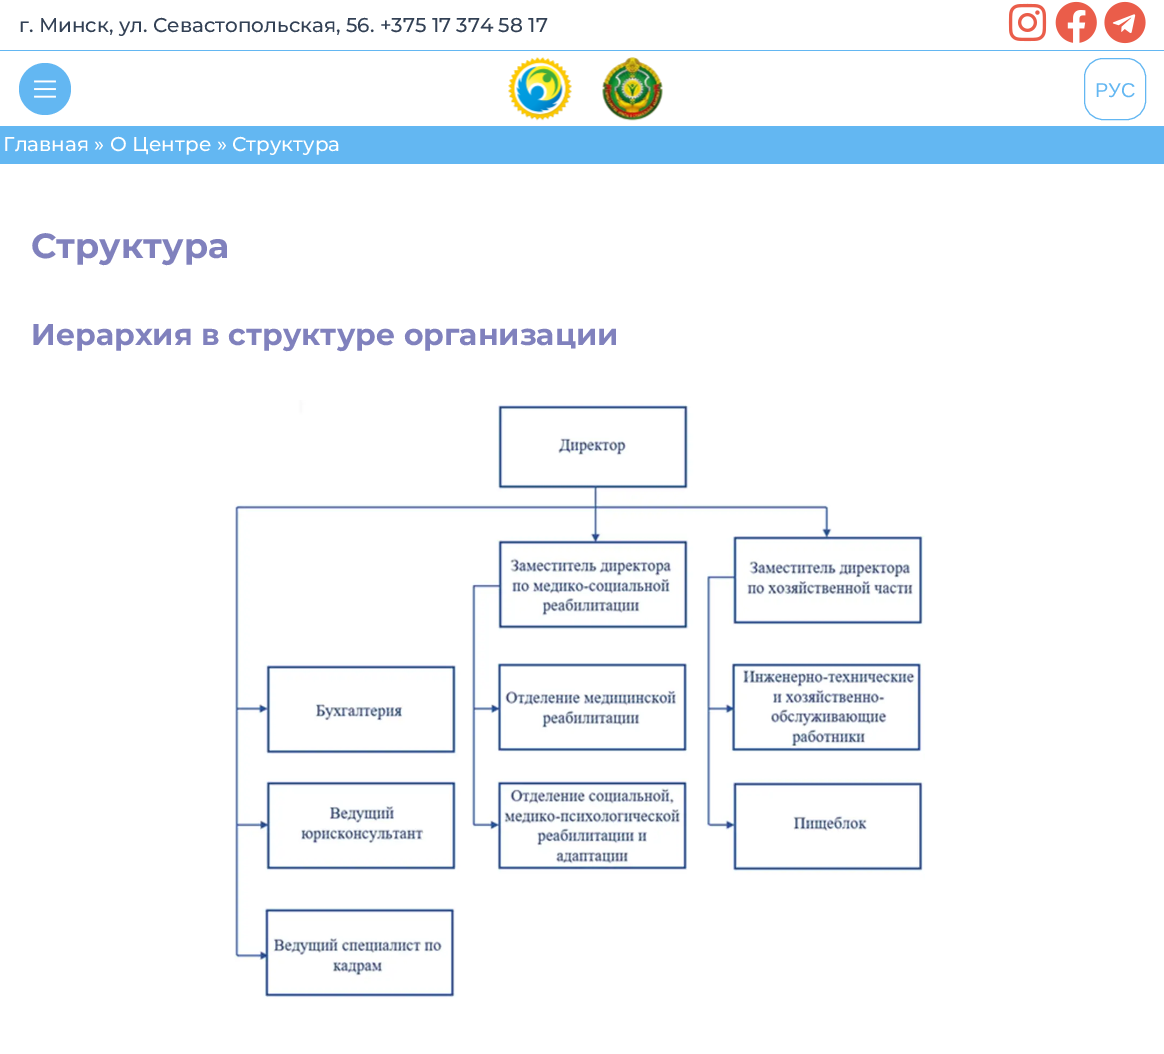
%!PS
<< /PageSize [1164 1054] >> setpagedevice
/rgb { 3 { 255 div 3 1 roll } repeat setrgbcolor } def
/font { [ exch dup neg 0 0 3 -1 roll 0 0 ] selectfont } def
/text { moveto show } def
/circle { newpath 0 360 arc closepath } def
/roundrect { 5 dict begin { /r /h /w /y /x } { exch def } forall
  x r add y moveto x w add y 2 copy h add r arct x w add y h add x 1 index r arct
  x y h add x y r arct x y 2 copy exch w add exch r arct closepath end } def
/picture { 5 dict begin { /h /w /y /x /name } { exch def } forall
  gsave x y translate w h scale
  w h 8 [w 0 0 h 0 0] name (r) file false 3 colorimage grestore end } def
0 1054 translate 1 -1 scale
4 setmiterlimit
255 255 255 rgb
0 0 1164 1054 rectfill
99 183 242 rgb
0 50 1164 1 rectfill
(img_01.rgb) 1008 3 39 39 picture
(img_02.rgb) 1055 1 42 42 picture
(img_03.rgb) 1104 1 42 43 picture
45 89 26 circle fill
(img_04.rgb) 34 80 22 18 picture
(img_05.rgb) 508 57 64 64 picture
(img_06.rgb) 602 57 61 64 picture
1084.5 58.5 61 61 18.5 roundrect stroke
0 126 1164 38 rectfill
(img_07.rgb) 234 400 691 599 picture
/Montserrat-Medium 20 font
51 65 85 rgb
(г. Минск, ул. Севастопольская, 56. +375 17 374 58 17) 19 32 text
/LiberationSans-Regular 20 font
99 183 242 rgb
(РУС) 1095 97 text
/Montserrat-Medium 20 font
255 255 255 rgb
(Главная » О Центре » Структура) 3 151 text
/Montserrat-Bold 35 font
128 129 189 rgb
(Структура) 31 258 text
/Montserrat-Bold 30 font
(Иерархия в структуре организации) 31 345 text
showpage
